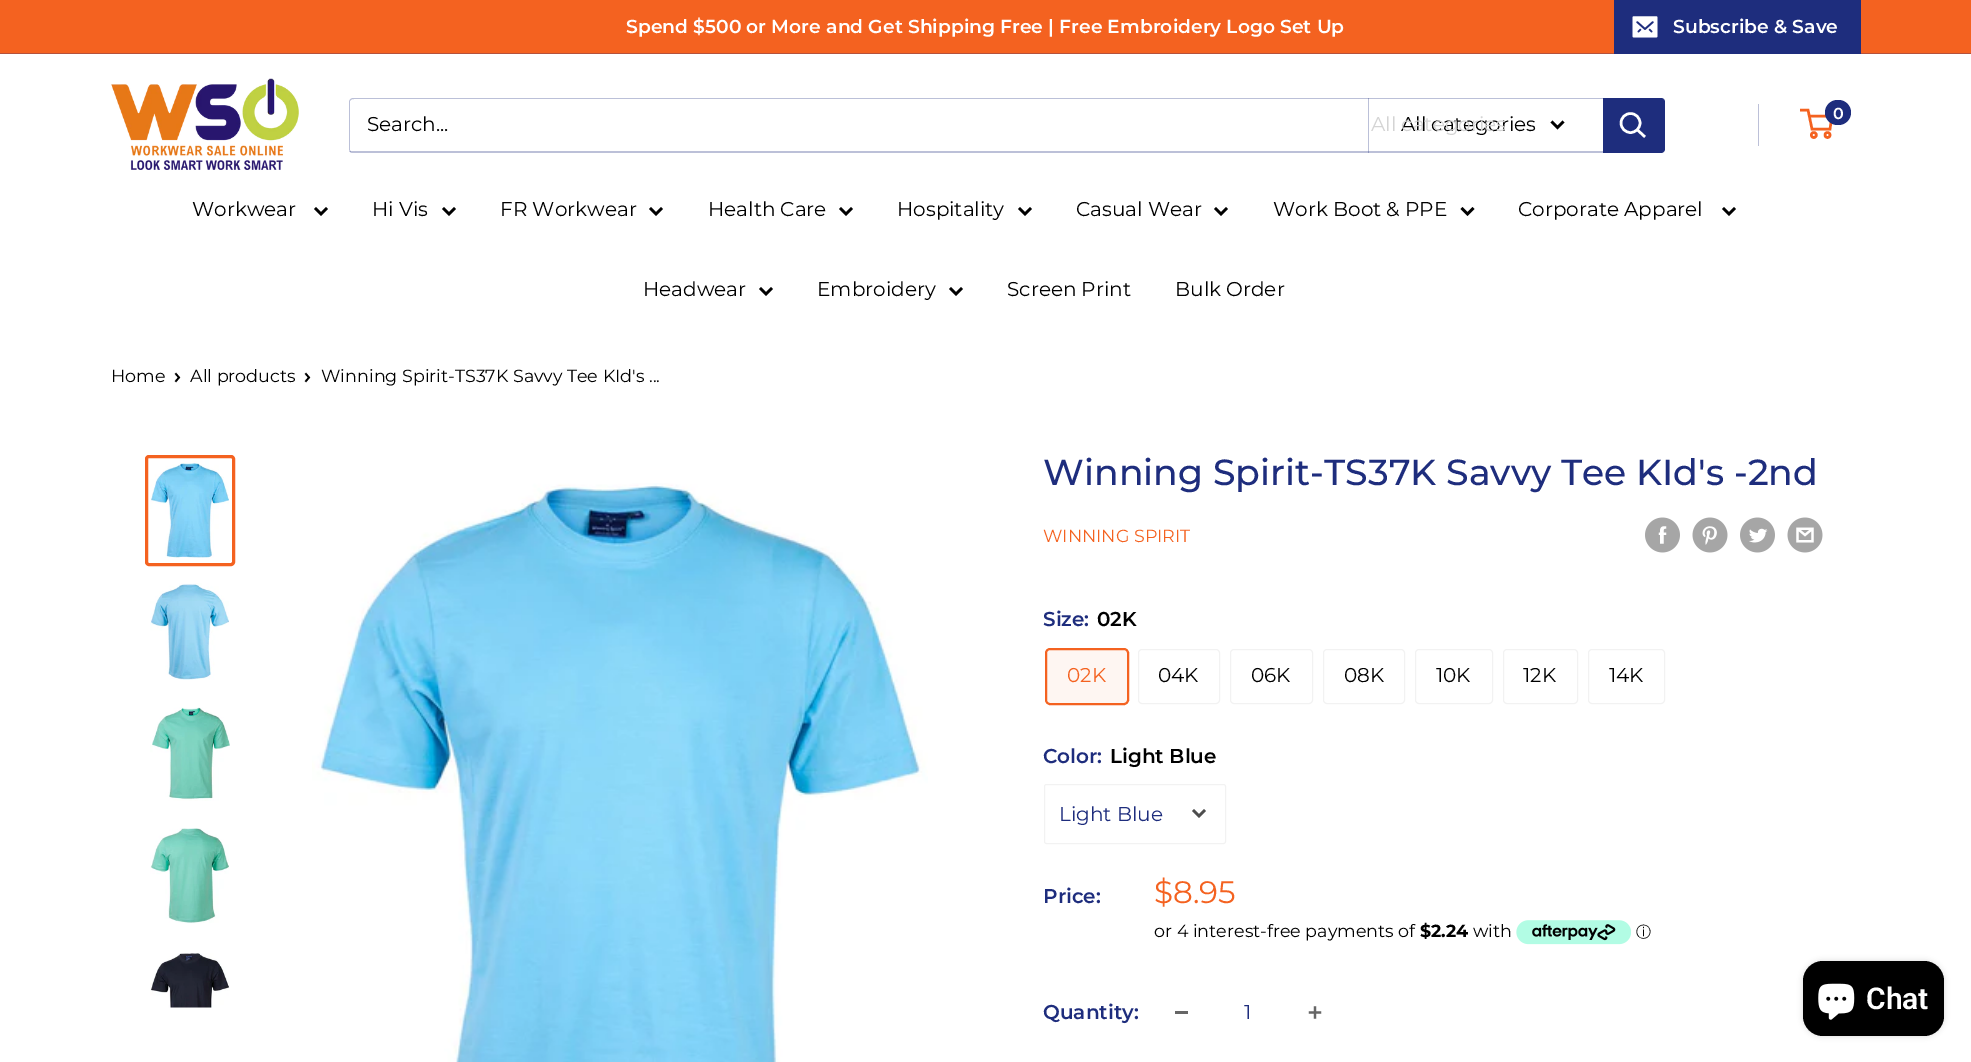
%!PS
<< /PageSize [1971 1062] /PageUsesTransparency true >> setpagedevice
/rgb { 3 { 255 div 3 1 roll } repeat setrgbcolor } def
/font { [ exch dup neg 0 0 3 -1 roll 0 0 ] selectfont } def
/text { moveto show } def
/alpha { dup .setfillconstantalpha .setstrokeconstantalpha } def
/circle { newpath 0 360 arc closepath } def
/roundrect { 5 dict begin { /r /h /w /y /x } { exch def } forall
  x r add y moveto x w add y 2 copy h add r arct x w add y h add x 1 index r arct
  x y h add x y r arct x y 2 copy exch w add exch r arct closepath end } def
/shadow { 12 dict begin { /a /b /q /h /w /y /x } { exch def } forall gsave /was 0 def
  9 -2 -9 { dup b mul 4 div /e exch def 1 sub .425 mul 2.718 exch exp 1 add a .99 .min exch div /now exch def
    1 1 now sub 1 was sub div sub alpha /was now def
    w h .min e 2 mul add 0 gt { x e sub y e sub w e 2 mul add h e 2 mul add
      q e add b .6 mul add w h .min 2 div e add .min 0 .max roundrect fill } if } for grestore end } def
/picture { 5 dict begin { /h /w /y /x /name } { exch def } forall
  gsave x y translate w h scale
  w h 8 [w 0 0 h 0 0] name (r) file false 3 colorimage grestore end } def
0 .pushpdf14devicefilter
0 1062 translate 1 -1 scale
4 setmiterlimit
255 255 255 rgb
0 0 1971 1062 rectfill
244 98 32 rgb
0 0 1971 53 rectfill
180 82 60 rgb
0 53 1971 1 rectfill
30 45 125 rgb
1614 0 247 54 rectfill
(img_01.rgb) 1632 16 26 22 picture
(img_02.rgb) 111 78 188 92 picture
188 192 216 rgb
1758 104 1 42 rectfill
244 98 32 rgb
2.5 setlinewidth
1813.8 135 2.5 circle stroke
1827.5 135 2.5 circle stroke
1809 116 moveto 23 0 rlineto -2 13 rlineto -18 0 rlineto -4 -19 rlineto -8 0 rlineto stroke
30 45 125 rgb
1825 100 26 25 12.5 roundrect fill
188 192 216 rgb
349 151 moveto 1 1 2 2 4 2 rcurveto 1308 0 rlineto 2 0 4 -2 4 -4 rcurveto 0 -47 rlineto 0 -1 0 -2 -1 -3 rcurveto 0 41 rlineto 0 4 2 11 -4 11 rcurveto closepath fill
0.3 alpha
30 45 125 rgb
354 99 moveto 1310 0 rlineto -1 -1 -2 -1 -3 -1 rcurveto -1308 0 rlineto -2 0 -4 2 -4 4 rcurveto 0 47 rlineto 0 1 1 3 2 3 rcurveto -1 -2 rlineto 0 -49 rlineto 1 -2 3 -2 4 -2 rcurveto closepath fill
1368 98 1 55 rectfill
1 alpha
0 0 0 rgb
2 setlinecap
1562.5 122.5 moveto -5 5 rlineto -5 -5 rlineto stroke
30 45 125 rgb
1603 98 moveto 58 0 rlineto 2 0 4 2 4 4 rcurveto 0 47 rlineto 0 2 -2 4 -4 4 rcurveto -58 0 rlineto closepath fill
255 255 255 rgb
1644 136 moveto -6.5 -6 rlineto stroke
0 setlinecap
1630.5 123 9.5 circle stroke
0 0 0 rgb
2 setlinecap
326 209 moveto -5 5 rlineto -5 -5 rlineto stroke
454 209 moveto -5 5 rlineto -5 -5 rlineto stroke
661 209 moveto -5 5 rlineto -5 -5 rlineto stroke
851 209 moveto -5 5 rlineto -5 -5 rlineto stroke
1030 209 moveto -5 5 rlineto -5 -5 rlineto stroke
1226 209 moveto -5 5 rlineto -5 -5 rlineto stroke
1472.5 209 moveto -5 5 rlineto -5 -5 rlineto stroke
1734 209 moveto -5 5 rlineto -5 -5 rlineto stroke
771 289 moveto -5 5 rlineto -5 -5 rlineto stroke
961 289 moveto -5 5 rlineto -5 -5 rlineto stroke
1.7 setlinewidth
176 374 moveto 3 3.5 rlineto -3 3.5 rlineto stroke
306 374 moveto 3 3.5 rlineto -3 3.5 rlineto stroke
244 98 32 rgb
3 setlinewidth
0 setlinecap
146.5 456.5 87 108 2.5 roundrect stroke
(img_03.rgb) 150 460 79 98 picture
(img_04.rgb) 150 583 79 97 picture
(img_05.rgb) 150 707 80 94 picture
(img_06.rgb) 150 828 79 96 picture
(img_07.rgb) 150 953 80 55 picture
(img_08.rgb) 312 483 616 579 picture
(img_09.rgb) 1645 517 35 36 picture
(img_10.rgb) 1692 517 36 36 picture
(img_11.rgb) 1740 517 35 36 picture
(img_12.rgb) 1787 517 36 36 picture
1 setlinewidth
1045.5 648.5 83 56 4.5 roundrect stroke
0.06 alpha
1046 649 82 55 rectfill
1 alpha
1046.5 649.5 81 54 3.5 roundrect stroke
242 242 242 rgb
1138.5 649.5 81 54 3.5 roundrect stroke
1230.5 649.5 82 54 3.5 roundrect stroke
1323.5 649.5 81 54 3.5 roundrect stroke
1415.5 649.5 77 54 3.5 roundrect stroke
1503.5 649.5 74 54 3.5 roundrect stroke
1588.5 649.5 76 54 3.5 roundrect stroke
1044.5 784.5 181 59 2 roundrect stroke
77 77 77 rgb
2.5 setlinewidth
2 setlinecap
1204 811 moveto -5 5 rlineto -5 -5 rlineto stroke
(img_13.rgb) 1516 920 115 25 picture
102 102 102 rgb
1175 1011 13 3 rectfill
(img_14.rgb) 1308 1006 14 13 picture
0 0 0 rgb
1803 961 141 75 20 3 0.15 shadow
1803 961 141 75 20 roundrect fill
(img_15.rgb) 1818 983 37 37 picture
/Montserrat-SemiBold 18.75 font
255 255 255 rgb
(Spend $500 or More and Get Shipping Free | Free Embroidery Logo Set Up) 626 33 text
(Subscribe & Save) 1673 33 text
/Montserrat-SemiBold 16 font
(0) 1833 119 text
/Montserrat-Regular 20 font
0 0 0 rgb
(Search...) 367 131 text
(All categories) 1401 131 text
212 212 212 rgb
(All categories) 1371 131 text
0 0 0 rgb
(Workwear) 192 216 text
(Hi Vis) 372 216 text
(FR Workwear) 500 216 text
(Health Care) 708 216 text
(Hospitality) 897 216 text
(Casual Wear) 1076 216 text
(Work Boot & PPE) 1273 216 text
(Corporate Apparel) 1518 216 text
(Headwear) 643 296 text
(Embroidery) 817 296 text
(Screen Print) 1007 296 text
(Bulk Order) 1175 296 text
/Montserrat-Regular 17.5 font
(Home) 111 382 text
(All products) 190 382 text
(Winning Spirit-TS37K Savvy Tee KId's ...) 321 382 text
/Montserrat-Medium 36.25 font
30 45 125 rgb
(Winning Spirit-TS37K Savvy Tee KId's -2nd) 1043 485 text
/Montserrat-Regular 17.5 font
244 98 32 rgb
(WINNING SPIRIT) 1043 542 text
/Montserrat-SemiBold 20 font
30 45 125 rgb
(Size:) 1043 626 text
0 0 0 rgb
(02K) 1097 626 text
/Montserrat-Regular 20 font
244 98 32 rgb
(02K) 1067 682 text
0 0 0 rgb
(04K) 1158 682 text
(06K) 1251 682 text
(08K) 1344 682 text
(10K) 1436 682 text
(12K) 1523 682 text
(14K) 1609 682 text
/Montserrat-SemiBold 20 font
30 45 125 rgb
(Color:) 1043 763 text
0 0 0 rgb
(Light Blue) 1110 763 text
/Montserrat-Regular 20 font
30 45 125 rgb
(Light Blue) 1059 821 text
/Montserrat-SemiBold 20 font
(Price:) 1043 903 text
/Montserrat-Regular 31 font
244 98 32 rgb
($8.95) 1154 903 text
/Montserrat-Regular 17.5 font
0 0 0 rgb
(or 4 interest-free payments of) 1154 937 text
/Montserrat-Bold 17.5 font
($2.24) 1420 937 text
/Montserrat-Regular 17.5 font
(with) 1473 937 text
/WenQuanYiZenHei-Medium 15 font
(ⓘ) 1636 937 text
/Montserrat-SemiBold 20 font
30 45 125 rgb
(Quantity:) 1043 1019 text
/Montserrat-Regular 20 font
(1) 1244 1019 text
/Roboto-SemiBold 30 font
255 255 255 rgb
(Chat) 1866 1009 text
.poppdf14devicefilter showpage
